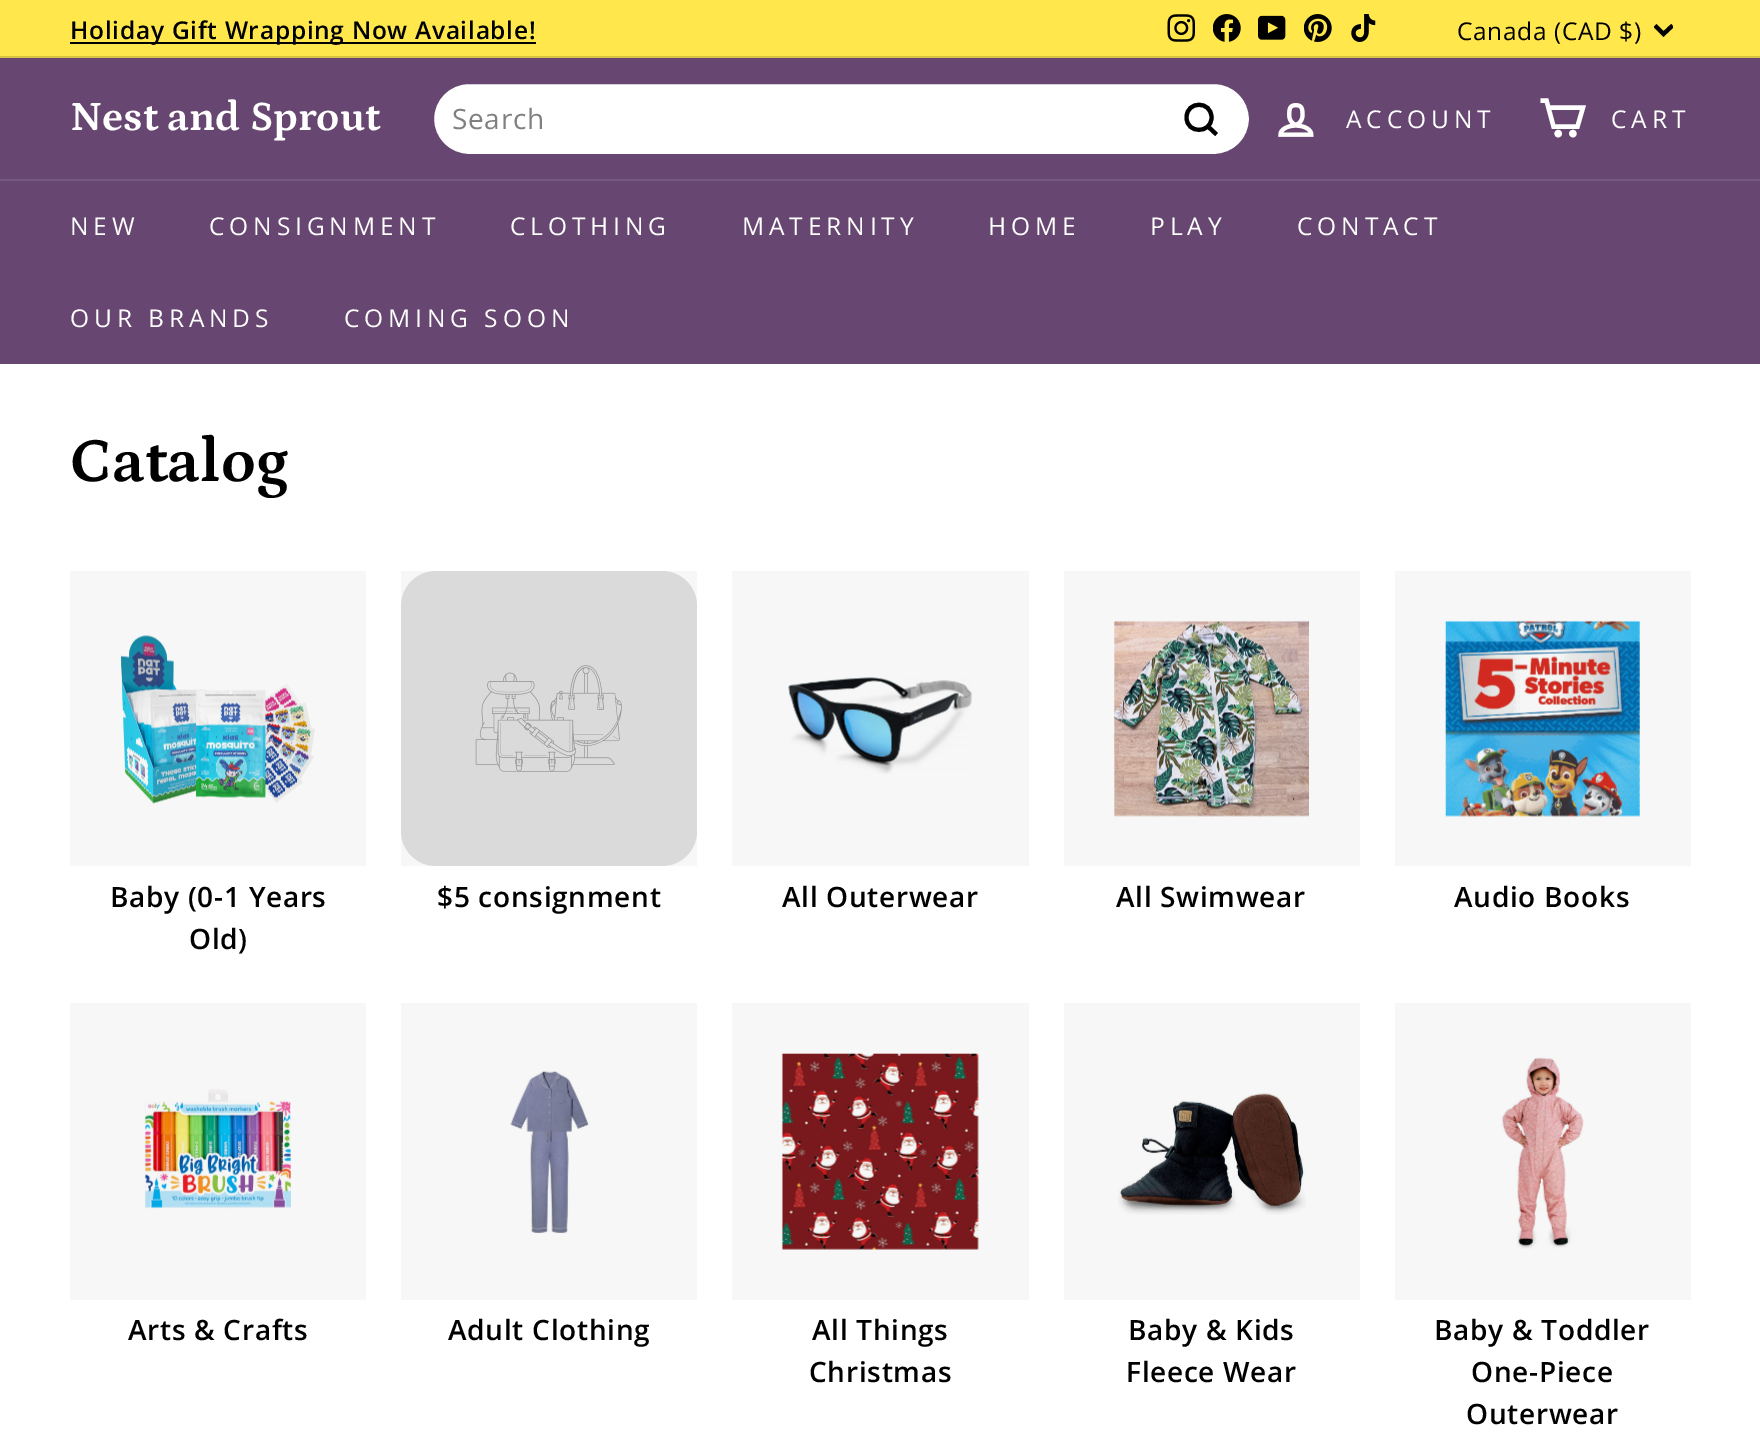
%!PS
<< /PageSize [1760 1443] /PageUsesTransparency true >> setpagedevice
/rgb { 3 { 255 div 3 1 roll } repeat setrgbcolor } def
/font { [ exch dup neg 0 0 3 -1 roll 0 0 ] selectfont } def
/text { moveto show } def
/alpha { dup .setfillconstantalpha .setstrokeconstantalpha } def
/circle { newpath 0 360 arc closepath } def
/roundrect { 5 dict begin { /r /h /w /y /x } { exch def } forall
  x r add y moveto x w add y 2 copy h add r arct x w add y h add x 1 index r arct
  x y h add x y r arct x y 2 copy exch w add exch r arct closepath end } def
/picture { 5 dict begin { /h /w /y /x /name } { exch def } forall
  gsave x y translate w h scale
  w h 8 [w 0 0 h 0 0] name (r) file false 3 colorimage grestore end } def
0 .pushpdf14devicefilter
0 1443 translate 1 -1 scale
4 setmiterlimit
255 255 255 rgb
0 0 1760 1443 rectfill
255 231 76 rgb
0 0 1760 56 rectfill
0 0 0 rgb
70 42 466 2 rectfill
(img_01.rgb) 1167 14 28 28 picture
(img_02.rgb) 1213 14 28 28 picture
(img_03.rgb) 1258 15 28 25 picture
(img_04.rgb) 1304 14 28 28 picture
(img_05.rgb) 1351 14 25 28 picture
gsave
1654 21 19 19 rectclip
4.1 setlinewidth
1655 25.5 moveto 8.5 8.5 rlineto 9 -8.5 rlineto stroke
grestore
217 196 65 rgb
0 56 1760 2 rectfill
103 71 113 rgb
0 58 1760 121 rectfill
255 255 255 rgb
433 83 817 72 36 roundrect gsave fill grestore
103 71 113 rgb
2 setlinewidth
stroke
0 0 0 rgb
4.1 setlinewidth
1211.5 117.5 moveto 0 16.5 -25 16.5 -25 0 rcurveto 0 -17 25 -17 25 0 rcurveto closepath 1216.5 134.5 moveto -8.5 -8 rlineto stroke
(img_06.rgb) 1278 103 36 34 picture
255 255 255 rgb
4.4 setlinewidth
1548.5 107.5 moveto 34.5 0 rlineto -5.5 19 rlineto -24 0 rlineto -7 -26 rlineto -6 0 rlineto stroke
1558.2 133.6 1.5 circle gsave fill grestore
stroke
1572.9 133.6 1.5 circle gsave fill grestore
stroke
103 71 113 rgb
0 179 moveto 0 185 rlineto 1760 0 rlineto 0 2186 rlineto 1 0 rlineto 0 -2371 rlineto closepath fill
118 89 127 rgb
0 179 1760 2 rectfill
(img_07.rgb) 120 635 195 169 picture
0.03 alpha
0 0 0 rgb
70 571 296 295 rectfill
1 alpha
225 225 225 rgb
401 571 296 295 35 roundrect fill
(img_08.rgb) 475 665 147 107 picture
0.03 alpha
0 0 0 rgb
401 571 296 295 rectfill
1 alpha
(img_09.rgb) 788 677 184 97 picture
0.03 alpha
732 571 297 295 rectfill
1 alpha
(img_10.rgb) 1114 620 195 197 picture
0.03 alpha
1064 571 296 295 rectfill
1 alpha
(img_11.rgb) 1445 620 195 197 picture
0.03 alpha
1395 571 296 295 rectfill
1 alpha
(img_12.rgb) 144 1089 147 120 picture
0.03 alpha
70 1003 296 297 rectfill
1 alpha
(img_13.rgb) 510 1071 79 163 picture
0.03 alpha
401 1003 296 297 rectfill
1 alpha
(img_14.rgb) 781 1053 198 197 picture
0.03 alpha
732 1003 297 297 rectfill
1 alpha
(img_15.rgb) 1118 1093 188 122 picture
0.03 alpha
1064 1003 296 297 rectfill
1 alpha
(img_16.rgb) 1501 1057 83 192 picture
0.03 alpha
1395 1003 296 297 rectfill
/OpenSans-SemiBold 24.5 font
1 alpha
70 39 moveto 0.7 0 (Holiday Gift Wrapping Now Available!) ashow
/OpenSans-Regular 24.5 font
1457 40 moveto 0.6 0 (Canada \(CAD $\)) ashow
/Petrona-Bold 42 font
255 255 255 rgb
(Nest and Sprout) 70 130 text
/OpenSans-Regular 28 font
128 128 128 rgb
452 129 moveto 0.7 0 (Search) ashow
/OpenSans-Regular 24.5 font
255 255 255 rgb
1346 128 moveto 4.9 0 (ACCOUNT) ashow
1611 128 moveto 4.9 0 (CART) ashow
70 235 moveto 4.9 0 (NEW) ashow
209 235 moveto 4.9 0 (CONSIGNMENT) ashow
510 235 moveto 4.9 0 (CLOTHING) ashow
742 235 moveto 4.9 0 (MATERNITY) ashow
988 235 moveto 4.9 0 (HOME) ashow
1150 235 moveto 4.9 0 (PLAY) ashow
1297 235 moveto 4.9 0 (CONTACT) ashow
70 327 moveto 4.9 0 (OUR BRANDS) ashow
344 327 moveto 4.9 0 (COMING SOON) ashow
/Petrona-Bold 63 font
0 0 0 rgb
(Catalog) 70 481 text
/OpenSans-SemiBold 28 font
110 907 moveto 0.7 0 (Baby \(0-1 Years) ashow
189 949 moveto 0.7 0 (Old\)) ashow
437 907 moveto 0.7 0 ($5 consignment) ashow
782 907 moveto 0.7 0 (All Outerwear) ashow
1116 907 moveto 0.7 0 (All Swimwear) ashow
1454 907 moveto 0.7 0 (Audio Books) ashow
128 1340 moveto 0.7 0 (Arts & Crafts) ashow
448 1340 moveto 0.7 0 (Adult Clothing) ashow
812 1340 moveto 0.7 0 (All Things) ashow
809 1382 moveto 0.7 0 (Christmas) ashow
1128 1340 moveto 0.7 0 (Baby & Kids) ashow
1126 1382 moveto 0.7 0 (Fleece Wear) ashow
1434 1340 moveto 0.7 0 (Baby & Toddler) ashow
1471 1382 moveto 0.7 0 (One-Piece) ashow
1466 1424 moveto 0.7 0 (Outerwear) ashow
.poppdf14devicefilter showpage
